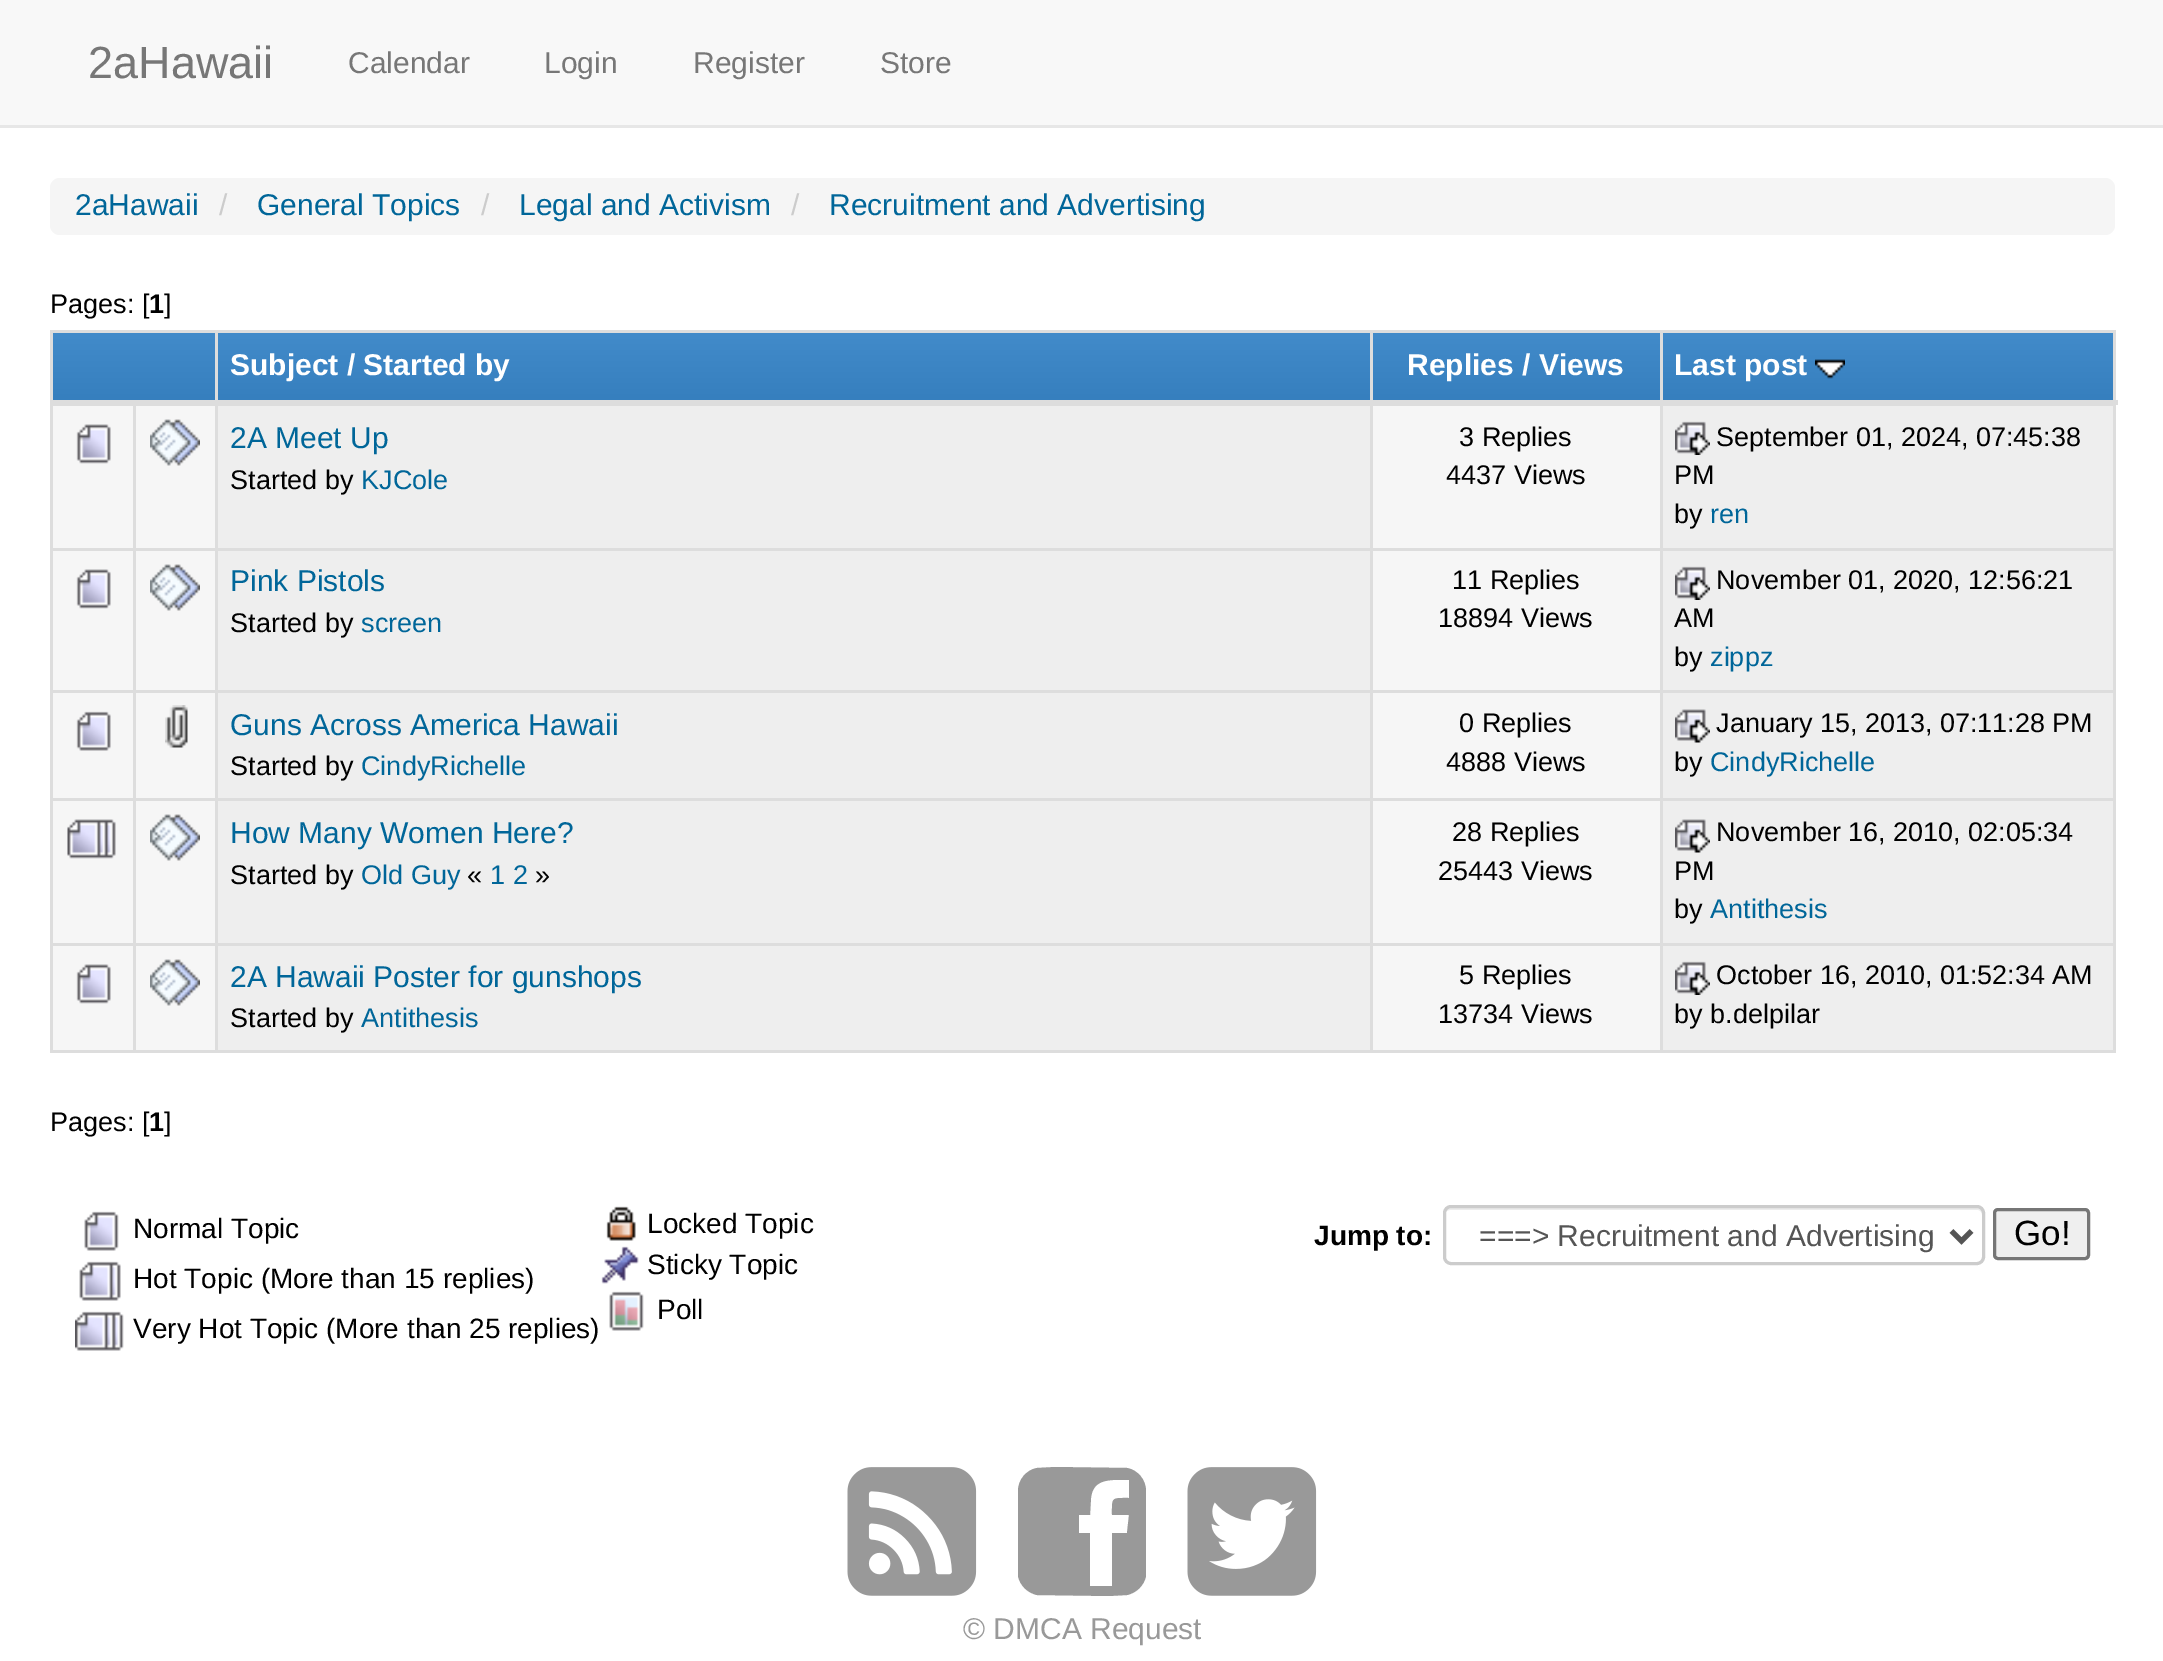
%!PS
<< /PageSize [2163 1661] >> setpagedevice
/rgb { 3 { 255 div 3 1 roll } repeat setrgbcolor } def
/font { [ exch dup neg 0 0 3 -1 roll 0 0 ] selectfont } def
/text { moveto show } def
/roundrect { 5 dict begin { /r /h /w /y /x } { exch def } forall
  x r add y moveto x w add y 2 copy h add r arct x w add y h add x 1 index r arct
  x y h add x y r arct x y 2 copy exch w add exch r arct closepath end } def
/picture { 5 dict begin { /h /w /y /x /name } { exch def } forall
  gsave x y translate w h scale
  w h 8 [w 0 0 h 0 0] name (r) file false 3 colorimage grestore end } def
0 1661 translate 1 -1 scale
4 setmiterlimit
255 255 255 rgb
0 0 2163 1661 rectfill
248 248 248 rgb
0 0 2163 125 rectfill
231 231 231 rgb
0 125 2163 3 rectfill
245 245 245 rgb
50 178 2065 57 10 roundrect fill
221 221 221 rgb
50 330 2065 3 rectfill
2113 330 3 723 rectfill
50 1050 2065 3 rectfill
50 330 3 723 rectfill
gsave 53 333 moveto 2060 0 rlineto 0 67 rlineto -2060 0 rlineto closepath clip newpath
<< /ShadingType 2 /ColorSpace /DeviceRGB /Coords [1084 332 1084 403] /Extend [true true] /Function << /FunctionType 2 /Domain [0 1] /C0 [0.259 0.545 0.792] /C1 [0.208 0.494 0.741] /N 1 >> >> shfill grestore
1660 405 455 1 rectfill
1660 548 455 3 rectfill
1660 690 455 3 rectfill
1660 798 455 3 rectfill
1660 943 455 3 rectfill
1660 943 3 110 rectfill
1370 943 293 3 rectfill
1660 798 3 147 rectfill
1370 798 293 3 rectfill
1660 690 3 110 rectfill
1370 690 293 3 rectfill
1660 548 3 145 rectfill
1370 548 293 3 rectfill
1660 330 3 220 rectfill
1370 405 293 1 rectfill
1370 943 3 110 rectfill
215 943 1158 3 rectfill
1370 798 3 147 rectfill
215 798 1158 3 rectfill
1370 690 3 110 rectfill
215 690 1158 3 rectfill
1370 548 3 145 rectfill
215 548 1158 3 rectfill
1370 330 3 220 rectfill
215 405 1158 1 rectfill
215 943 3 110 rectfill
133 943 85 3 rectfill
215 798 3 147 rectfill
133 798 85 3 rectfill
215 690 3 110 rectfill
133 690 85 3 rectfill
215 548 3 145 rectfill
133 548 85 3 rectfill
215 330 3 220 rectfill
133 405 85 1 rectfill
133 943 3 110 rectfill
50 943 85 3 rectfill
133 798 3 147 rectfill
50 798 85 3 rectfill
133 690 3 110 rectfill
50 690 85 3 rectfill
133 548 3 145 rectfill
50 548 85 3 rectfill
133 403 3 147 rectfill
50 400 2068 5 rectfill
(img_01.rgb) 1815 359 30 20 picture
246 246 246 rgb
53 406 80 142 rectfill
221 221 221 rgb
50 405 85 1 rectfill
(img_02.rgb) 76 424 35 40 picture
246 246 246 rgb
136 406 79 142 rectfill
(img_03.rgb) 150 419 50 47 picture
238 238 238 rgb
218 406 1152 142 rectfill
246 246 246 rgb
1373 406 287 142 rectfill
238 238 238 rgb
1663 406 450 142 rectfill
(img_04.rgb) 1675 421 35 34 picture
246 246 246 rgb
53 551 80 139 rectfill
(img_05.rgb) 76 569 35 40 picture
136 551 79 139 rectfill
(img_06.rgb) 150 564 50 47 picture
238 238 238 rgb
218 551 1152 139 rectfill
246 246 246 rgb
1373 551 287 139 rectfill
238 238 238 rgb
1663 551 450 139 rectfill
(img_07.rgb) 1675 566 35 34 picture
246 246 246 rgb
53 693 80 105 rectfill
(img_08.rgb) 76 711 35 40 picture
136 693 79 105 rectfill
(img_09.rgb) 165 705 23 43 picture
238 238 238 rgb
218 693 1152 105 rectfill
246 246 246 rgb
1373 693 287 105 rectfill
238 238 238 rgb
1663 693 450 105 rectfill
(img_10.rgb) 1675 709 35 34 picture
246 246 246 rgb
53 801 80 142 rectfill
(img_11.rgb) 67 819 49 40 picture
136 801 79 142 rectfill
(img_03.rgb) 150 814 50 47 picture
238 238 238 rgb
218 801 1152 142 rectfill
246 246 246 rgb
1373 801 287 142 rectfill
238 238 238 rgb
1663 801 450 142 rectfill
(img_10.rgb) 1675 819 35 34 picture
246 246 246 rgb
53 946 80 104 rectfill
(img_02.rgb) 76 964 35 40 picture
136 946 79 104 rectfill
(img_03.rgb) 150 959 50 47 picture
238 238 238 rgb
218 946 1152 104 rectfill
246 246 246 rgb
1373 946 287 104 rectfill
238 238 238 rgb
1663 946 450 104 rectfill
(img_04.rgb) 1675 961 35 34 picture
(img_12.rgb) 84 1211 35 40 picture
(img_13.rgb) 79 1261 42 40 picture
(img_14.rgb) 75 1311 49 40 picture
(img_15.rgb) 606 1206 30 35 picture
(img_16.rgb) 601 1246 38 38 picture
(img_17.rgb) 609 1291 35 40 picture
236 236 236 rgb
1450 1210 moveto 528 0 rlineto 2 0 4 2 4 5 rcurveto 0 46 rlineto 1 -1 1 -2 1 -3 rcurveto 0 -45 rlineto 0 -3 -2 -5 -5 -5 rcurveto -528 0 rlineto -3 0 -5 2 -5 5 rcurveto 0 2 rlineto 0 -3 2 -5 5 -5 rcurveto closepath fill
204 204 204 rgb
3 setlinewidth
1444.5 1206.5 539 57 6.5 roundrect stroke
85 85 85 rgb
5 setlinewidth
1951.5 1231 moveto 10 10 rlineto 10 -10 rlineto stroke
239 239 239 rgb
1994.5 1209.5 94 49 3.5 roundrect gsave fill grestore
118 118 118 rgb
3 setlinewidth
stroke
(img_18.rgb) 847 1467 130 129 picture
153 153 153 rgb
1127 1533 moveto 2 -18 rlineto -17 0 rlineto 0 -18 -1 -17 17 -17 rcurveto 0 -18 rlineto -16 0 -36 -3 -38 18 rcurveto -1 17 rlineto -11 0 rlineto 0 18 rlineto 11 0 rlineto 0 53 rlineto 22 0 rlineto 0 -53 rlineto closepath 1146 1491 moveto 0 85 rlineto -2 10 -10 17 -19 19 rcurveto -18 1 rlineto -72 -1 rlineto -9 -2 -17 -9 -19 -19 rcurveto 0 -85 rlineto 0 -11 8 -21 19 -23 rcurveto 18 -1 rlineto 72 1 rlineto 11 2 19 12 19 23 rcurveto closepath fill
(img_19.rgb) 1187 1467 130 129 picture
/LiberationSans-Regular 45 font
119 119 119 rgb
(2aHawaii) 88 78 text
/LiberationSans-Regular 30 font
(Calendar) 348 73 text
(Login) 544 73 text
(Register) 693 73 text
(Store) 880 73 text
0 102 153 rgb
(2aHawaii) 75 215 text
204 204 204 rgb
(/) 219 215 text
0 102 153 rgb
(General Topics) 257 215 text
204 204 204 rgb
(/) 481 215 text
0 102 153 rgb
(Legal and Activism) 519 215 text
204 204 204 rgb
(/) 791 215 text
0 102 153 rgb
(Recruitment and Advertising) 829 215 text
/LiberationSans-Regular 27 font
0 0 0 rgb
(Pages: [) 50 313 text
/LiberationSans-Bold 27 font
(1) 149 313 text
/LiberationSans-Regular 27 font
(]) 164 313 text
/LiberationSans-Bold 30 font
255 255 255 rgb
(Subject / Started by) 230 375 text
(Replies / Views) 1407 375 text
(Last post) 1674 375 text
/LiberationSans-Regular 30 font
0 102 153 rgb
(2A Meet Up) 230 448 text
/LiberationSans-Regular 27 font
0 0 0 rgb
(Started by) 230 489 text
0 102 153 rgb
(KJCole) 361 489 text
0 0 0 rgb
(3 Replies) 1459 446 text
(4437 Views) 1446 484 text
(September 01, 2024, 07:45:38) 1716 446 text
(PM) 1674 484 text
(by) 1674 523 text
0 102 153 rgb
(ren) 1710 523 text
/LiberationSans-Regular 30 font
(Pink Pistols) 230 591 text
/LiberationSans-Regular 27 font
0 0 0 rgb
(Started by) 230 632 text
0 102 153 rgb
(screen) 361 632 text
0 0 0 rgb
(11 Replies) 1452 589 text
(18894 Views) 1438 627 text
(November 01, 2020, 12:56:21) 1716 589 text
(AM) 1674 627 text
(by) 1674 666 text
0 102 153 rgb
(zippz) 1710 666 text
/LiberationSans-Regular 30 font
(Guns Across America Hawaii) 230 735 text
/LiberationSans-Regular 27 font
0 0 0 rgb
(Started by) 230 775 text
0 102 153 rgb
(CindyRichelle) 361 775 text
0 0 0 rgb
(0 Replies) 1459 732 text
(4888 Views) 1446 771 text
(January 15, 2013, 07:11:28 PM) 1716 732 text
(by) 1674 771 text
0 102 153 rgb
(CindyRichelle) 1710 771 text
/LiberationSans-Regular 30 font
(How Many Women Here?) 230 843 text
/LiberationSans-Regular 27 font
0 0 0 rgb
(Started by) 230 884 text
0 102 153 rgb
(Old Guy) 361 884 text
0 0 0 rgb
(«) 467 884 text
0 102 153 rgb
(1 2) 490 884 text
0 0 0 rgb
(») 535 884 text
(28 Replies) 1452 841 text
(25443 Views) 1438 880 text
(November 16, 2010, 02:05:34) 1716 841 text
(PM) 1674 880 text
(by) 1674 918 text
0 102 153 rgb
(Antithesis) 1710 918 text
/LiberationSans-Regular 30 font
(2A Hawaii Poster for gunshops) 230 987 text
/LiberationSans-Regular 27 font
0 0 0 rgb
(Started by) 230 1027 text
0 102 153 rgb
(Antithesis) 361 1027 text
0 0 0 rgb
(5 Replies) 1459 984 text
(13734 Views) 1438 1023 text
(October 16, 2010, 01:52:34 AM) 1716 984 text
(by b.delpilar) 1674 1023 text
(Pages: [) 50 1131 text
/LiberationSans-Bold 27 font
(1) 149 1131 text
/LiberationSans-Regular 27 font
(]) 164 1131 text
/LiberationSans-Regular 28 font
(Normal Topic) 133 1238 text
(Hot Topic \(More than 15 replies\)) 133 1288 text
(Very Hot Topic \(More than 25 replies\)) 133 1338 text
(Locked Topic) 647 1233 text
(Sticky Topic) 647 1274 text
(Poll) 657 1319 text
/LiberationSans-Bold 28 font
(Jump to:) 1314 1245 text
/LiberationSans-Regular 30 font
85 85 85 rgb
(===> Recruitment and Advertising) 1479 1246 text
/LiberationSans-Regular 35 font
0 0 0 rgb
(Go!) 2014 1245 text
/LiberationSans-Regular 30 font
153 153 153 rgb
(© DMCA Request) 963 1639 text
showpage
